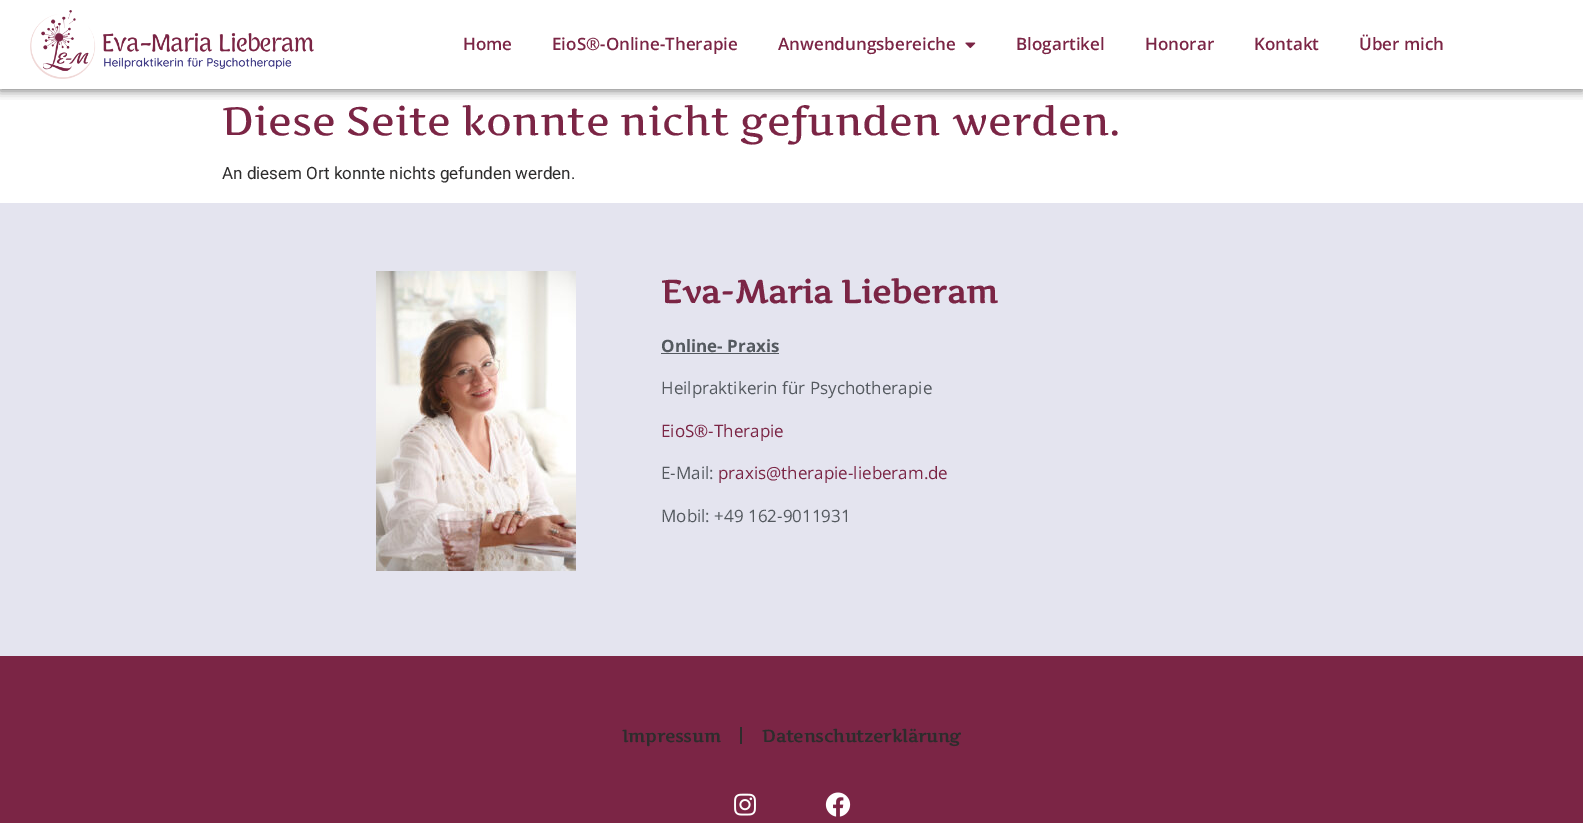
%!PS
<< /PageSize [1583 823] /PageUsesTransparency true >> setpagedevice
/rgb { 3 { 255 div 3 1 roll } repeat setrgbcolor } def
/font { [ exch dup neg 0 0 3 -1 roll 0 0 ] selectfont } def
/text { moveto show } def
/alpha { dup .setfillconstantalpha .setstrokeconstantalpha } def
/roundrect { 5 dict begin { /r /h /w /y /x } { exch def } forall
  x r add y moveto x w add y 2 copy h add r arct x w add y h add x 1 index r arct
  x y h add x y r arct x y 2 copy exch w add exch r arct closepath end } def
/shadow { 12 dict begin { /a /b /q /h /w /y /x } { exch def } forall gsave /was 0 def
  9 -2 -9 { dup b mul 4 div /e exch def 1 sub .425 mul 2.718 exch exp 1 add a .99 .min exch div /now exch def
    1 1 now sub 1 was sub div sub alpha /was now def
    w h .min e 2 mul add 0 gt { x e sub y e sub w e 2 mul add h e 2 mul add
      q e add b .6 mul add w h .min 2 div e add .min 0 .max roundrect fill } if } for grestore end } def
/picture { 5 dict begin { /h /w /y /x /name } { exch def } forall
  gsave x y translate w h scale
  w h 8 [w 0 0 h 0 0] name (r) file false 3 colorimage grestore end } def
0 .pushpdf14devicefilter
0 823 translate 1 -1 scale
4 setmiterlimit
255 255 255 rgb
0 0 1583 823 rectfill
gsave
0 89 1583 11 rectclip
0 0 0 rgb
0 2 1583 89 0 5 0.5 shadow
grestore
(img_01.rgb) 30 10 284 69 picture
(img_02.rgb) 965 42 11 7 picture
228 228 239 rgb
0 203 1583 453 rectfill
(img_03.rgb) 376 271 200 300 picture
84 89 95 rgb
661 353 118 1 rectfill
123 37 69 rgb
0 656 1583 167 rectfill
45 44 44 rgb
740 727 2 17 rectfill
(img_04.rgb) 734 793 22 23 picture
(img_05.rgb) 825 792 26 25 picture
/OpenSans-SemiBold 17 font
123 37 69 rgb
(Home) 463 50 text
(EioS®-Online-Therapie) 552 50 text
(Anwendungsbereiche) 778 50 text
(Blogartikel) 1016 50 text
(Honorar) 1145 50 text
(Kontakt) 1254 50 text
(Über mich) 1359 50 text
/Artifika-Regular 40 font
(Diese Seite konnte nicht gefunden werden.) 222 135 text
/Roboto-Regular 17 font
45 44 44 rgb
(An diesem Ort konnte nichts gefunden werden.) 222 179 text
/Artifika-Bold 32 font
123 37 69 rgb
(Eva-Maria Lieberam) 661 303 text
/OpenSans-Bold 17 font
84 89 95 rgb
(Online- Praxis) 661 352 text
/OpenSans-Regular 17 font
(Heilpraktikerin für Psychotherapie) 661 394 text
123 37 69 rgb
(EioS®-Therapie) 661 437 text
84 89 95 rgb
(E-Mail:) 661 479 text
123 37 69 rgb
(praxis@therapie-lieberam.de) 718 479 text
84 89 95 rgb
(Mobil: +49 162-9011931) 661 522 text
/Artifika-Bold 17 font
45 44 44 rgb
(Impressum) 622 742 text
(Datenschutzerklärung) 762 742 text
.poppdf14devicefilter showpage
